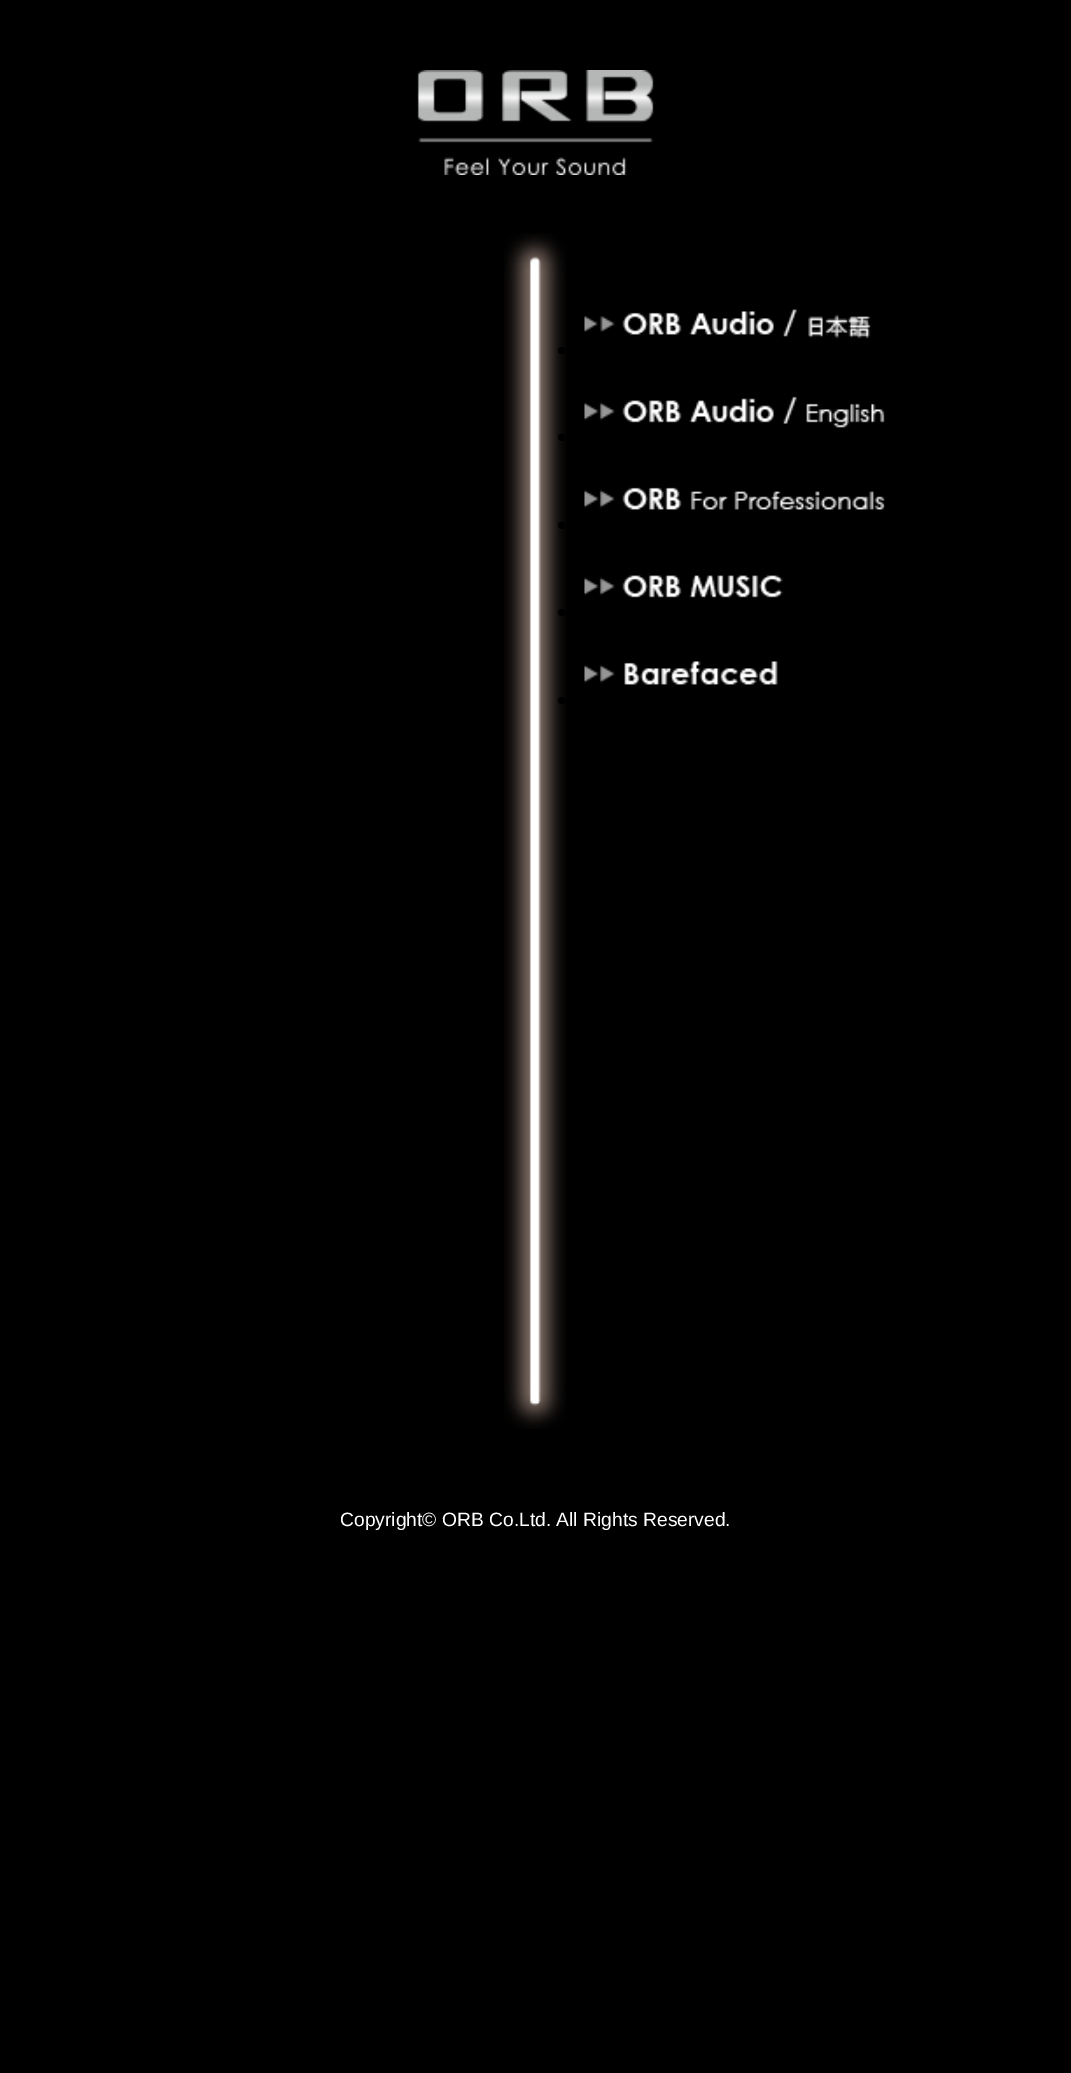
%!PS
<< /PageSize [1071 2073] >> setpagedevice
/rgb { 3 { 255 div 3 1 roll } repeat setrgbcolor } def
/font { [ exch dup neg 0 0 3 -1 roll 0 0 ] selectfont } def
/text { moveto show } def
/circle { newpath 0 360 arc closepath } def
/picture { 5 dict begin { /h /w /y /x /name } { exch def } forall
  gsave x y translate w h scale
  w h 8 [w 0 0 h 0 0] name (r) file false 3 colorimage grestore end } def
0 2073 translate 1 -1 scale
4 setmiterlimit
0 0 0 rgb
0 0 1071 2073 rectfill
(img_01.rgb) 504 233 62 1196 picture
(img_02.rgb) 417 70 237 105 picture
(img_03.rgb) 584 309 287 30 picture
561.5 350.5 3.5 circle fill
(img_04.rgb) 584 396 301 32 picture
561.5 437.5 3.5 circle fill
(img_05.rgb) 584 487 301 23 picture
561.5 525.5 3.5 circle fill
(img_06.rgb) 584 575 199 23 picture
561.5 612.5 3.5 circle fill
(img_07.rgb) 584 661 194 24 picture
561.5 700.5 3.5 circle fill
/LiberationSans-Regular 19.25 font
255 255 255 rgb
(Copyright© ORB Co.Ltd. All Rights Reserved.) 340 1526 text
showpage
